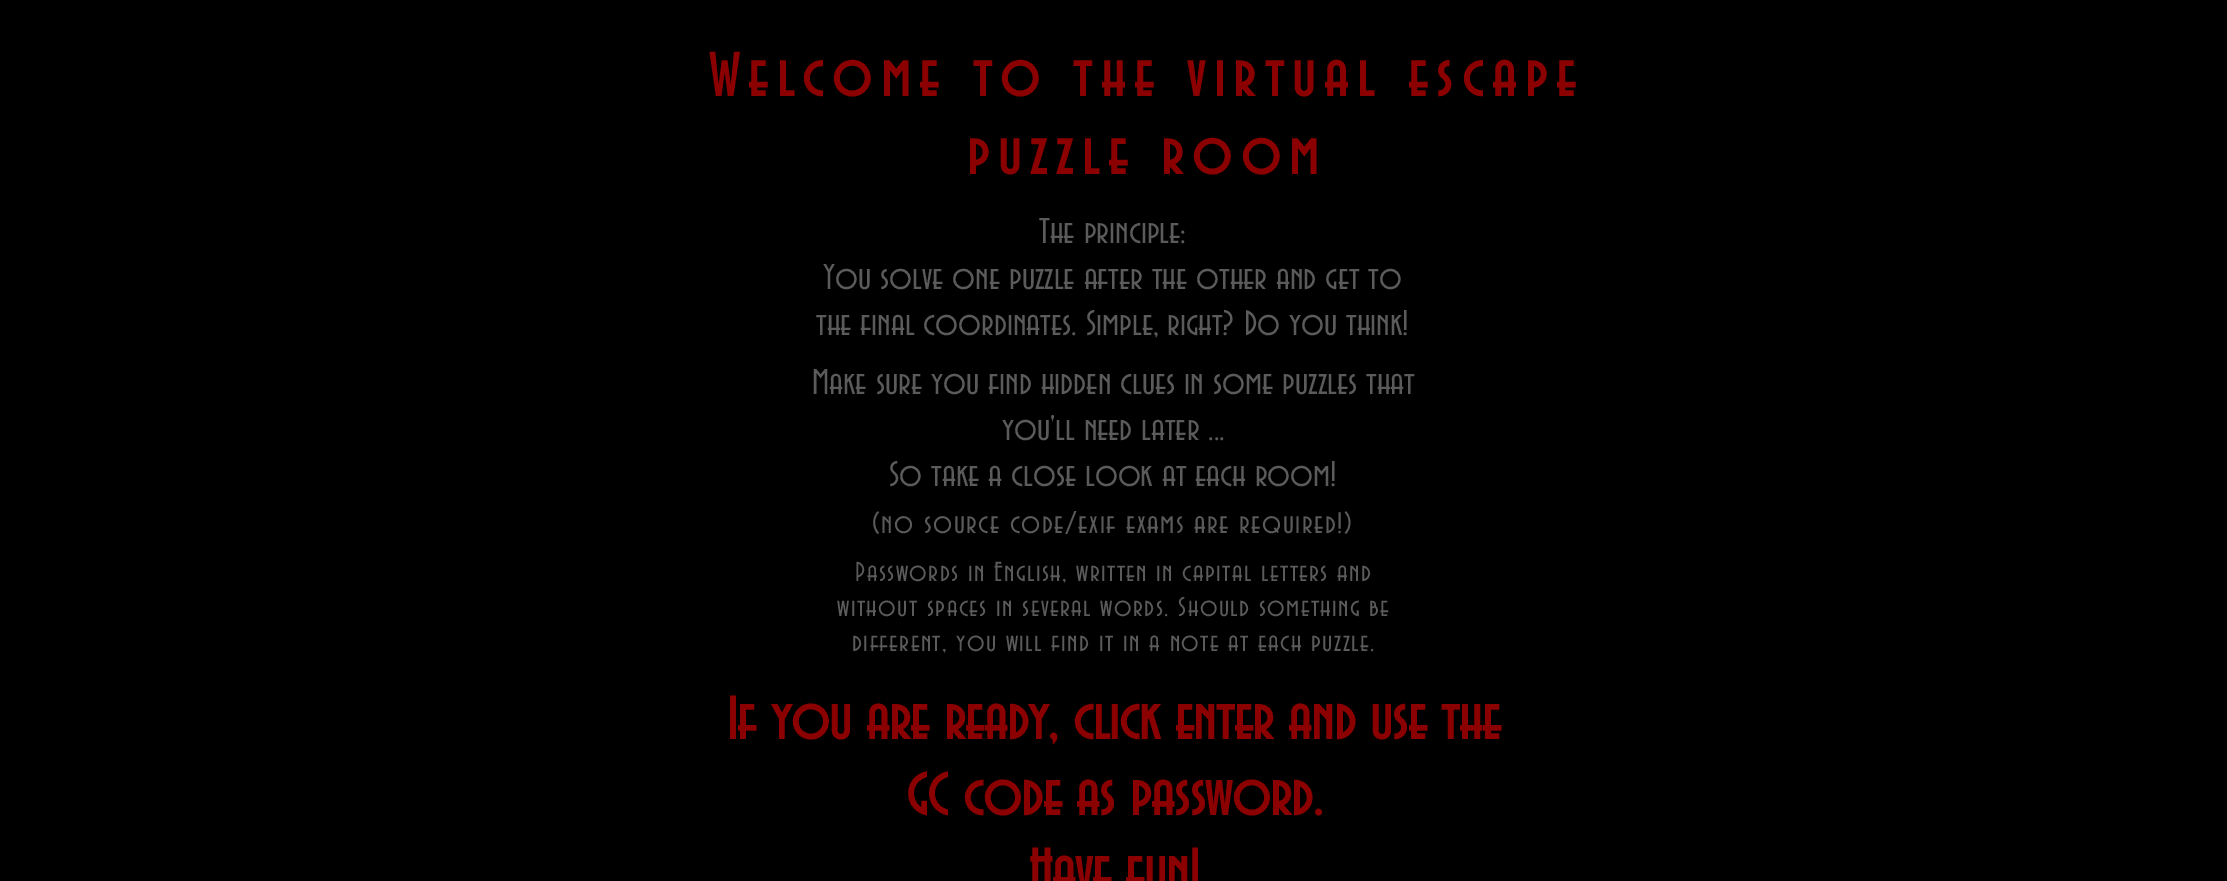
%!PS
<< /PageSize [2227 881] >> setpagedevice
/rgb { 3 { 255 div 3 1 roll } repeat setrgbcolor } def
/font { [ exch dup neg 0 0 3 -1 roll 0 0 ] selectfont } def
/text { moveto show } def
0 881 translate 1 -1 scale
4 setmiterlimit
0 0 0 rgb
0 0 2227 881 rectfill
/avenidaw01-Bold 63.75 font
139 0 0 rgb
709 96 moveto 9.55 0 (Welcome to the virtual escape) ashow
967 174 moveto 9.55 0 (puzzle room) ashow
/avenidaw01-Regular 37.5 font
91 91 91 rgb
(The principle:) 1039 243 text
(You solve one puzzle after the other and get to) 823 289 text
(the final coordinates. Simple, right? Do you think!) 816 335 text
(Make sure you find hidden clues in some puzzles that) 812 394 text
(you'll need later ...) 1002 440 text
(So take a close look at each room!) 889 486 text
/avenidaw01-Regular 31.25 font
871 533 moveto 1.55 0 (\(no source code/exif exams are required!\)) ashow
/avenidaw01-Regular 28.75 font
855 581 moveto 1.45 0 (Passwords in English, written in capital letters and) ashow
837 616 moveto 1.45 0 (without spaces in several words. Should something be) ashow
852 651 moveto 1.45 0 (different, you will find it in a note at each puzzle.) ashow
/avenidaw01-Bold 62.5 font
139 0 0 rgb
(If you are ready, click enter and use the) 727 739 text
(GC code as password.) 906 815 text
(Have fun!) 1029 891 text
showpage
